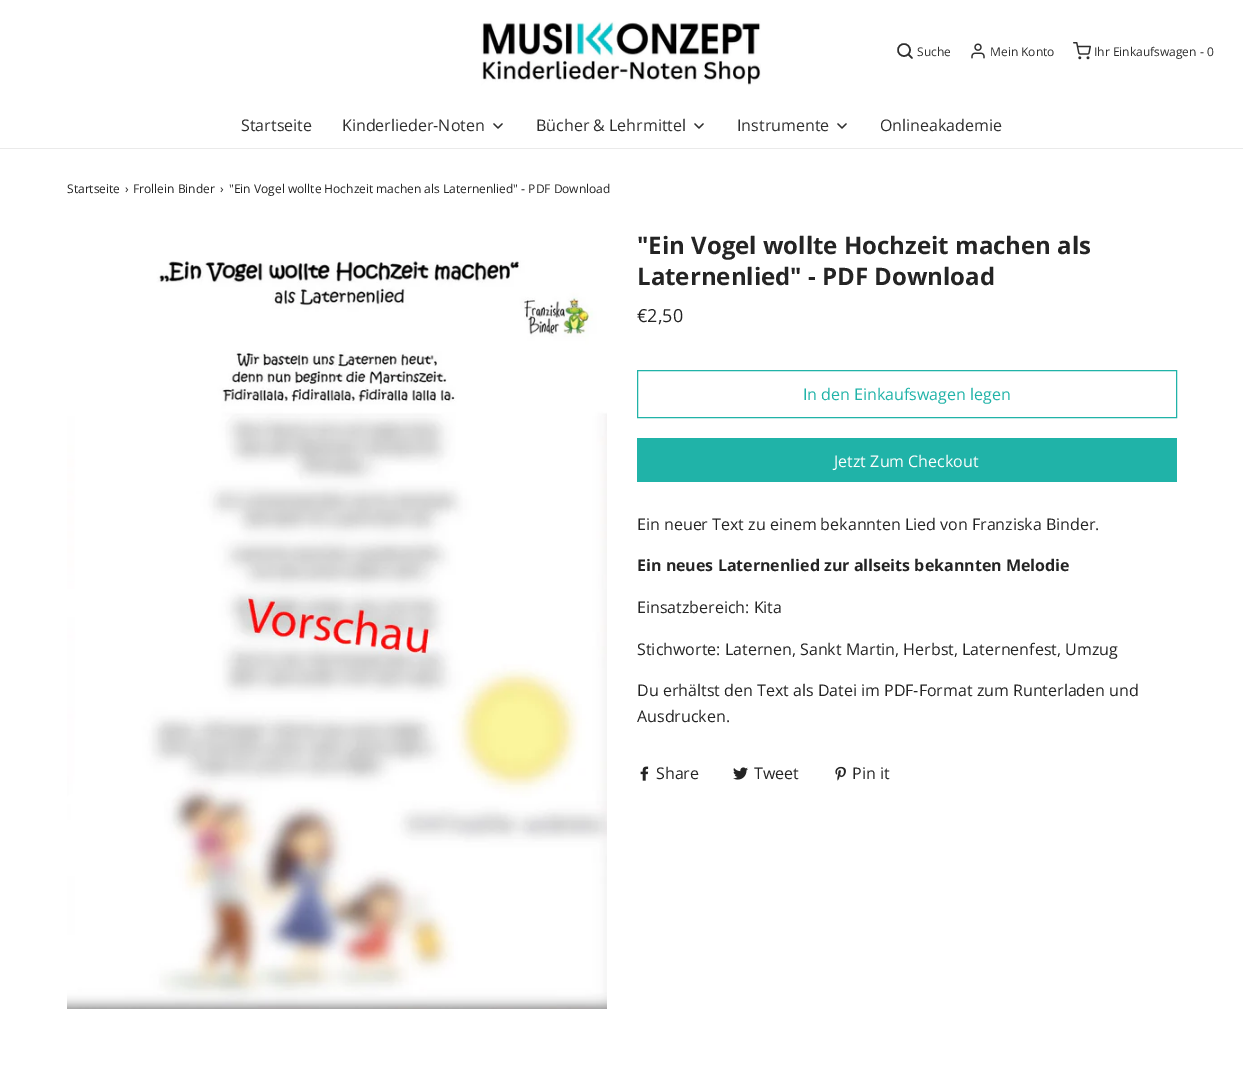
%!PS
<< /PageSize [1243 1076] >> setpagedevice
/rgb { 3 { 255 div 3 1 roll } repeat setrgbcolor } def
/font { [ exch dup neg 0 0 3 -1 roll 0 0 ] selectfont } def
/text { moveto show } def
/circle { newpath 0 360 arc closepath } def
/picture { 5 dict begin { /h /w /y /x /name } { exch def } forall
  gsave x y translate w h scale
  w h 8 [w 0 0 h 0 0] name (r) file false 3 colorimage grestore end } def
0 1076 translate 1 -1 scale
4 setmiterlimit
255 255 255 rgb
0 0 1243 1076 rectfill
234 234 234 rgb
0 148 1243 1 rectfill
(img_01.rgb) 481 21 280 65 picture
46 46 46 rgb
1.5 setlinewidth
904 50 6 circle stroke
1 setlinecap
1 setlinejoin
912 58 moveto -3.5 -3.5 rlineto stroke
(img_02.rgb) 971 43 14 16 picture
(img_03.rgb) 1073 42 18 18 picture
1.3 setlinewidth
494 124 moveto 4 4 rlineto 4 -4 rlineto stroke
695 124 moveto 4 4 rlineto 4 -4 rlineto stroke
838 124 moveto 4 4 rlineto 4 -4 rlineto stroke
(img_04.rgb) 67 260 540 749 picture
32 179 168 rgb
1 setlinewidth
0 setlinecap
0 setlinejoin
637.5 370.5 539 47 rectstroke
637 438 540 44 rectfill
(img_05.rgb) 640 766 9 15 picture
(img_06.rgb) 733 767 15 13 picture
(img_07.rgb) 835 766 11 15 picture
/OpenSans-Regular 12 font
46 46 46 rgb
(Suche) 917 56 text
(Mein Konto) 990 56 text
(Ihr Einkaufswagen - 0) 1094 56 text
/OpenSans-Regular 16 font
(Startseite) 241 131 text
(Kinderlieder-Noten) 342 131 text
(Bücher & Lehrmittel) 536 131 text
(Instrumente) 737 131 text
(Onlineakademie) 880 131 text
/OpenSans-Regular 12 font
36 36 36 rgb
(Startseite) 67 193 text
(›) 125 193 text
(Frollein Binder) 133 193 text
(›) 220 193 text
("Ein Vogel wollte Hochzeit machen als Laternenlied" - PDF Download) 229 193 text
/OpenSans-Bold 24 font
("Ein Vogel wollte Hochzeit machen als) 637 254 text
(Laternenlied" - PDF Download) 637 285 text
/OpenSans-Regular 18 font
(€2,50) 637 322 text
/OpenSans-Regular 16 font
32 179 168 rgb
(In den Einkaufswagen legen) 803 400 text
255 255 255 rgb
(Jetzt Zum Checkout) 834 467 text
36 36 36 rgb
(Ein neuer Text zu einem bekannten Lied von Franziska Binder.) 637 530 text
/OpenSans-Bold 16 font
(Ein neues Laternenlied zur allseits bekannten Melodie) 637 571 text
/OpenSans-Regular 16 font
(Einsatzbereich: Kita) 637 613 text
(Stichworte: Laternen, Sankt Martin, Herbst, Laternenfest, Umzug) 637 655 text
(Du erhältst den Text als Datei im PDF-Format zum Runterladen und) 637 696 text
(Ausdrucken.) 637 722 text
(Share) 656 779 text
(Tweet) 754 779 text
(Pin it) 852 779 text
showpage
